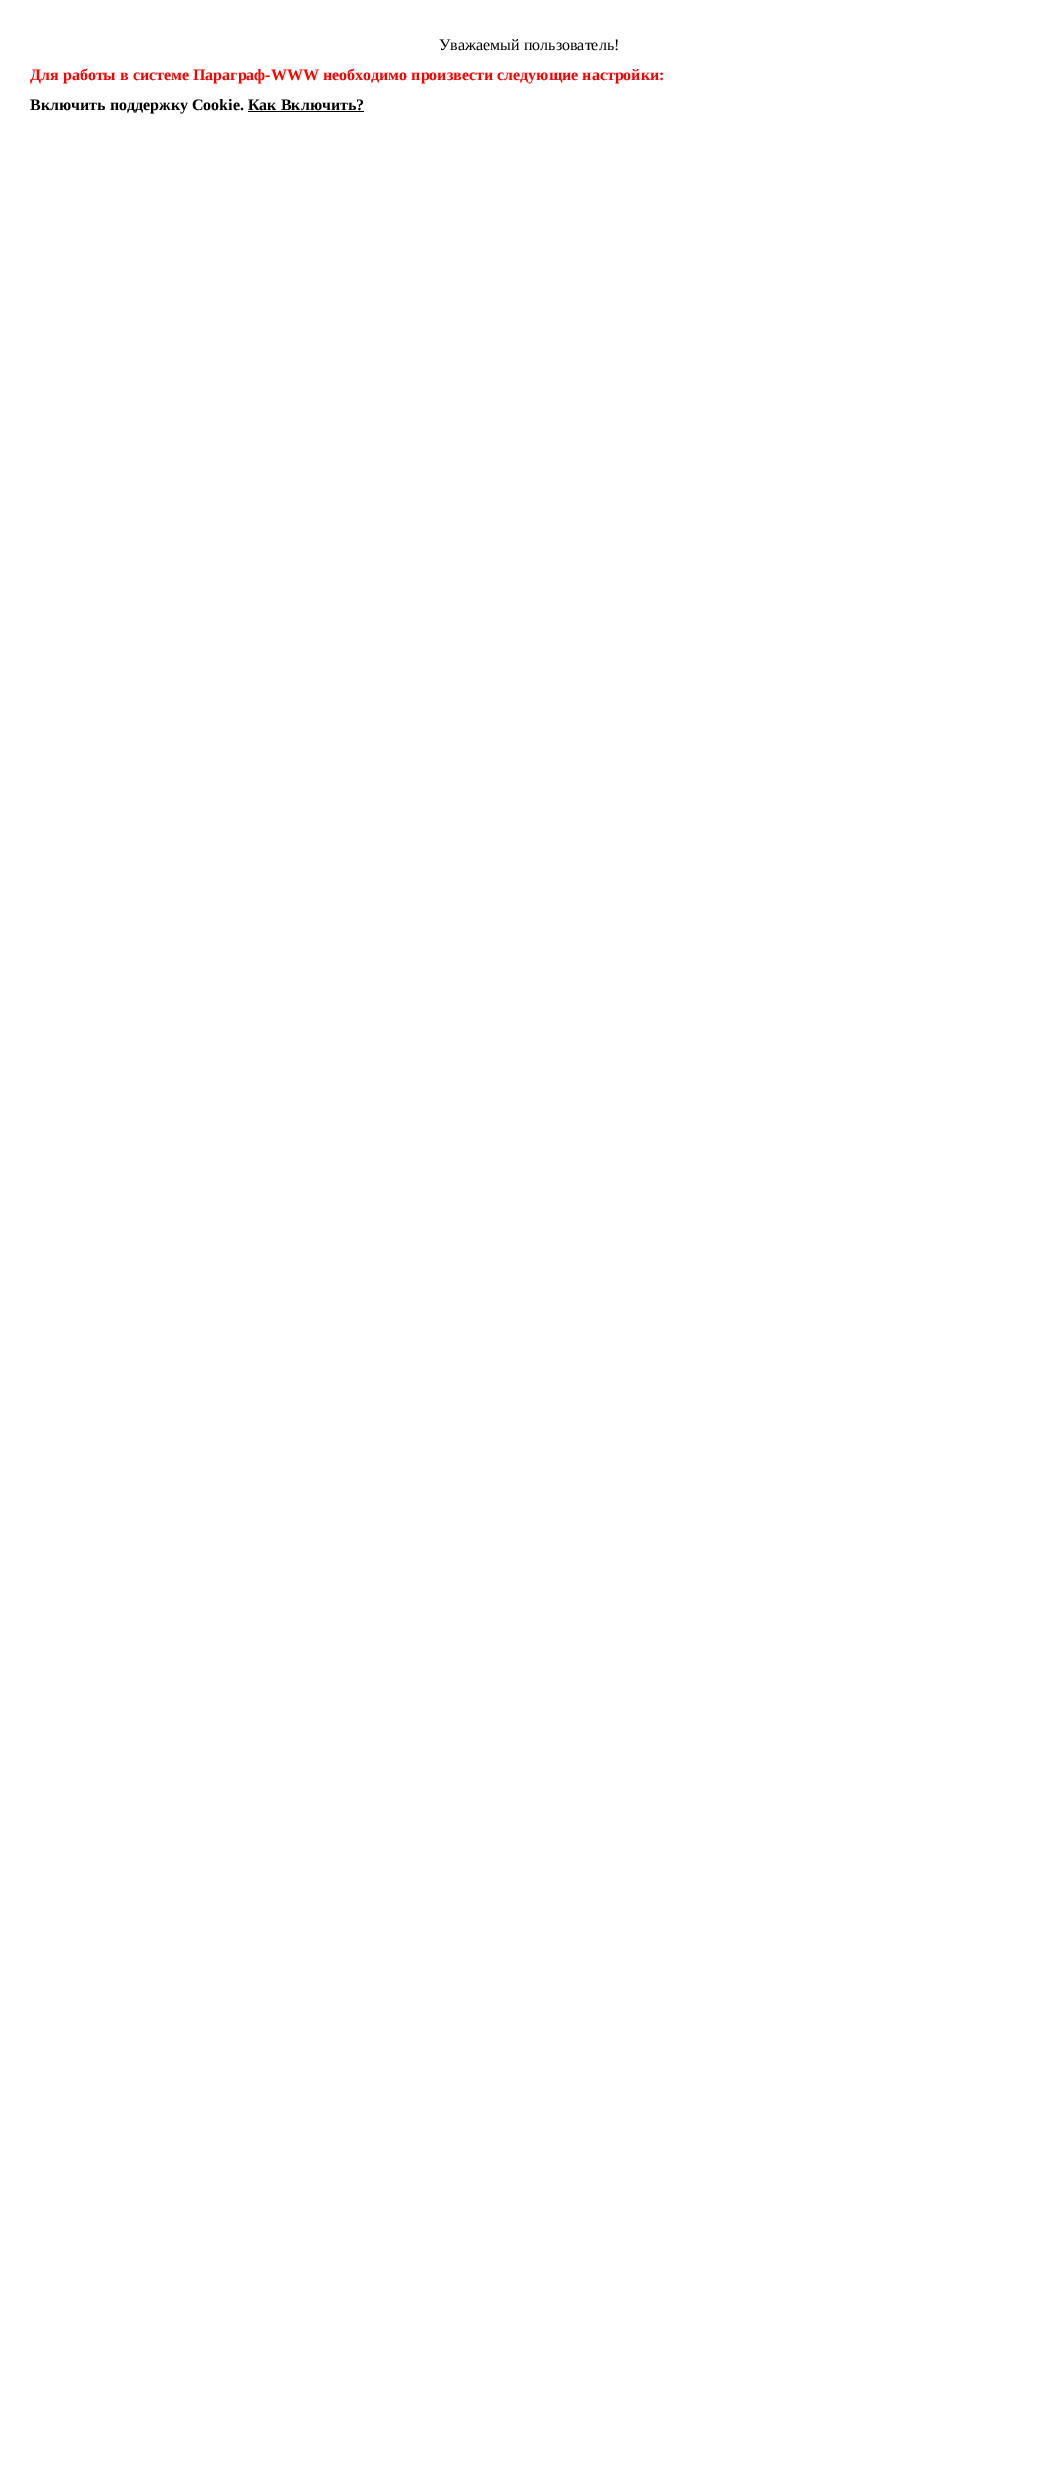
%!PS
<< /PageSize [1058 2473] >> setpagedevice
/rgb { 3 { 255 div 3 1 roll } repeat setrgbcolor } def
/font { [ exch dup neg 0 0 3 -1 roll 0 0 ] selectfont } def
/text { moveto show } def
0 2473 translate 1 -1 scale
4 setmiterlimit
255 255 255 rgb
0 0 1058 2473 rectfill
0 0 0 rgb
248 111 116 1 rectfill
/LiberationSerif-Regular 16 font
(Уважаемый пользователь!) 439 50 text
/LiberationSerif-Bold 16 font
255 0 0 rgb
(Для работы в системе Параграф-WWW необходимо произвести следующие настройки:) 30 80 text
0 0 0 rgb
(Включить поддержку Cookie. Как Включить?) 30 110 text
showpage
